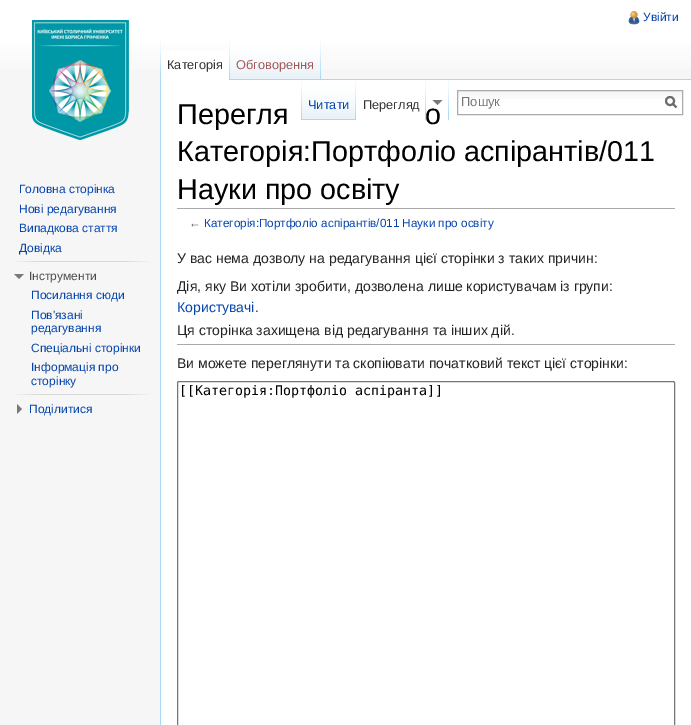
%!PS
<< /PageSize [691 725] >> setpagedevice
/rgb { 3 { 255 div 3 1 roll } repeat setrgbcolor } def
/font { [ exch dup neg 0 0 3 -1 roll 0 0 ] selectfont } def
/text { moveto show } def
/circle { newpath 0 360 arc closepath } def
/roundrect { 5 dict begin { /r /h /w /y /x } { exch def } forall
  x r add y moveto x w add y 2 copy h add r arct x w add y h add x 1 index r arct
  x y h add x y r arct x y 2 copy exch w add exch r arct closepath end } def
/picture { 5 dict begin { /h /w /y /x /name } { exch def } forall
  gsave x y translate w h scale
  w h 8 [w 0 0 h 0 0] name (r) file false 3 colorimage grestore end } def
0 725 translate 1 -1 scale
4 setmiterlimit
246 246 246 rgb
0 0 691 725 rectfill
gsave 0 0 moveto 691 0 rlineto 0 69 rlineto -691 0 rlineto closepath clip newpath
<< /ShadingType 2 /ColorSpace /DeviceRGB /Coords [346 0 346 80] /Extend [true true] /Function << /FunctionType 3 /Domain [0 1] /Functions [<< /FunctionType 2 /Domain [0 1] /C0 [1 1 1] /C1 [1 1 1] /N 1 >> << /FunctionType 2 /Domain [0 1] /C0 [1 1 1] /C1 [0.965 0.965 0.965] /N 1 >>] /Bounds [0.5] /Encode [0 1 0 1] >> >> shfill grestore
(img_01.rgb) 628 11 12 14 picture
(img_02.rgb) 160 40 1 39 picture
255 255 255 rgb
161 51 68 29 rectfill
(img_03.rgb) 229 40 1 40 picture
(img_04.rgb) 230 40 91 40 picture
(img_05.rgb) 320 40 1 39 picture
161 80 530 645 rectfill
(img_06.rgb) 301 80 1 40 picture
(img_07.rgb) 302 80 54 40 picture
(img_05.rgb) 355 80 1 39 picture
(img_03.rgb) 425 80 1 40 picture
121 121 121 rgb
442.5 100 moveto -5 5 rlineto -5 -5 rlineto closepath fill
(img_03.rgb) 448 80 1 40 picture
(img_08.rgb) 458 91 224 8 picture
170 170 170 rgb
457.5 90.5 225 24 rectstroke
108 108 108 rgb
2 setlinewidth
676.5 107.5 moveto -4 -4 rlineto stroke
670 101 4 circle stroke
(img_09.rgb) 32 20 97 120 picture
(img_10.rgb) 14 261 135 1 picture
121 121 121 rgb
24 274 moveto -5 5 rlineto -5 -5 rlineto closepath fill
(img_10.rgb) 14 394 135 1 picture
17 404 moveto 5 5 rlineto -5 5 rlineto closepath fill
167 215 249 rgb
321 79 370 1 rectfill
160 79 1 646 rectfill
170 170 170 rgb
177 208 498 1 rectfill
177 344 498 1 rectfill
118 118 118 rgb
1 setlinewidth
177.5 381.5 497 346 1.5 roundrect stroke
/LiberationSans-Regular 12 font
6 69 173 rgb
(Увійти) 643 21 text
/LiberationSans-Regular 12.75 font
51 51 51 rgb
(Категорія) 167 69 text
165 88 88 rgb
(Обговорення) 236 69 text
6 69 173 rgb
(Читати) 308 109 text
51 51 51 rgb
(Перегляд) 363 109 text
/LiberationSans-Regular 13 font
117 117 117 rgb
(Пошук) 461 106 text
/LiberationSans-Regular 12 font
6 69 173 rgb
(Головна сторінка) 19 193 text
(Нові редагування) 19 213 text
(Випадкова стаття) 19 232 text
(Довідка) 19 252 text
77 77 77 rgb
(Інструменти) 29 280 text
6 69 173 rgb
(Посилання сюди) 31 299 text
(Пов'язані) 31 319 text
(редагування) 31 332 text
(Спеціальні сторінки) 31 352 text
(Інформація про) 31 371 text
(сторінку) 31 385 text
(Поділитися) 29 413 text
/LiberationSans-Regular 28.75 font
0 0 0 rgb
(Перегля) 177 124 text
(о) 425 124 text
(Категорія:Портфоліо аспірантів/011) 177 161 text
(Науки про освіту) 177 199 text
/LiberationSans-Regular 11.75 font
84 84 84 rgb
(←) 189 227 text
6 69 173 rgb
(Категорія:Портфоліо аспірантів/011 Науки про освіту) 204 227 text
/LiberationSans-Regular 14 font
37 37 37 rgb
(У вас нема дозволу на редагування цієї сторінки з таких причин:) 177 263 text
(Дія, яку Ви хотіли зробити, дозволена лише користувачам із групи:) 177 291 text
6 69 173 rgb
(Користувачі) 177 312 text
37 37 37 rgb
(.) 255 312 text
(Ця сторінка захищена від редагування та інших дій.) 177 335 text
(Ви можете переглянути та скопіювати початковий текст цієї сторінки:) 177 368 text
/DejaVuSansMono-Regular 13.3 font
0 0 0 rgb
([[Категорія:Портфоліо аспіранта]]) 179 395 text
showpage
